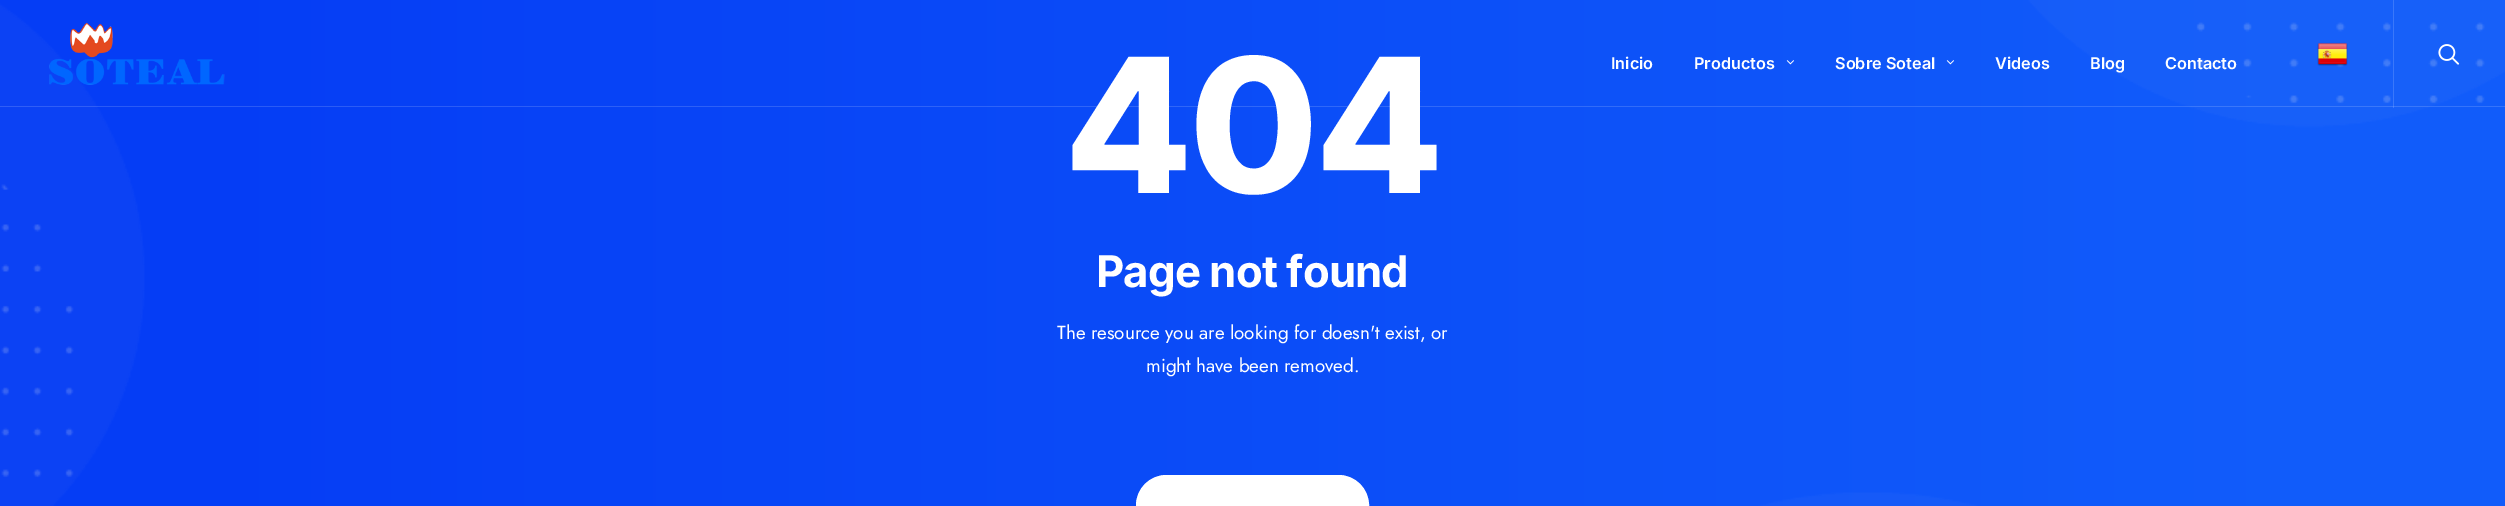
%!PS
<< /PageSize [2505 506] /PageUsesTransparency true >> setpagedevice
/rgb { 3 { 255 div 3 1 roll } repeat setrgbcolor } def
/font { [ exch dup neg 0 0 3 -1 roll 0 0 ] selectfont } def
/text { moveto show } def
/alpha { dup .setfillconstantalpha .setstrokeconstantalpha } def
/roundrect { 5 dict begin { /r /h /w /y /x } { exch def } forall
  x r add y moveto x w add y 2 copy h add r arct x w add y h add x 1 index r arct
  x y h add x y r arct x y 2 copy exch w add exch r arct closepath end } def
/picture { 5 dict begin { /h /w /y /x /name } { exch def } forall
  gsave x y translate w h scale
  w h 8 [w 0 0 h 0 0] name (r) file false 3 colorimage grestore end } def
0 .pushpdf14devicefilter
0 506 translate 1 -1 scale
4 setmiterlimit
255 255 255 rgb
0 0 2505 506 rectfill
gsave 0 0 moveto 2505 0 rlineto 0 506 rlineto -2505 0 rlineto closepath clip newpath
<< /ShadingType 2 /ColorSpace /DeviceRGB /Coords [2505 291 0 291] /Extend [true true] /Function << /FunctionType 3 /Domain [0 1] /Functions [<< /FunctionType 2 /Domain [0 1] /C0 [0.067 0.361 0.98] /C1 [0.067 0.361 0.98] /N 1 >> << /FunctionType 2 /Domain [0 1] /C0 [0.067 0.361 0.98] /C1 [0.02 0.239 0.961] /N 1 >> << /FunctionType 2 /Domain [0 1] /C0 [0.02 0.239 0.961] /C1 [0.02 0.239 0.961] /N 1 >>] /Bounds [0.09 0.91] /Encode [0 1 0 1 0 1] >> >> shfill grestore
gsave 1050 428 moveto 405 0 rlineto 0 1 rlineto -405 0 rlineto closepath clip newpath
<< /ShadingType 2 /ColorSpace /DeviceRGB /Coords [2505 291 0 291] /Extend [true true] /Function << /FunctionType 3 /Domain [0 1] /Functions [<< /FunctionType 2 /Domain [0 1] /C0 [0.302 0.522 0.984] /C1 [0.302 0.522 0.984] /N 1 >> << /FunctionType 2 /Domain [0 1] /C0 [0.302 0.522 0.984] /C1 [0.267 0.431 0.973] /N 1 >> << /FunctionType 2 /Domain [0 1] /C0 [0.267 0.431 0.973] /C1 [0.267 0.431 0.973] /N 1 >>] /Bounds [0.09 0.91] /Encode [0 1 0 1 0 1] >> >> shfill grestore
(img_01.rgb) 0 0 2505 506 picture
1136.5 475.5 232 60 30 roundrect gsave fill grestore
stroke
(img_02.rgb) 49 22 176 63 picture
(img_03.rgb) 1786 60 8 5 picture
(img_04.rgb) 1946 60 8 5 picture
(img_05.rgb) 2317 42 31 24 picture
(img_06.rgb) 2438 44 22 21 picture
/Inter-ExtraBold 187.5 font
1064 193 moveto -4 0 (404) ashow
/Inter-Bold 43.75 font
1096 287 moveto -0.9 0 (Page not found) ashow
/Jost-Regular 18.75 font
(The resource you are looking for doesn't exist, or) 1057 339 text
(might have been removed.) 1146 372 text
/Inter-SemiBold 16.25 font
(Inicio) 1611 69 text
(Productos) 1694 69 text
(Sobre Soteal) 1835 69 text
(Videos) 1995 69 text
(Blog) 2090 69 text
(Contacto) 2165 69 text
0.15 alpha
0 106 2505 1 rectfill
2393 0 1 108 rectfill
.poppdf14devicefilter showpage
